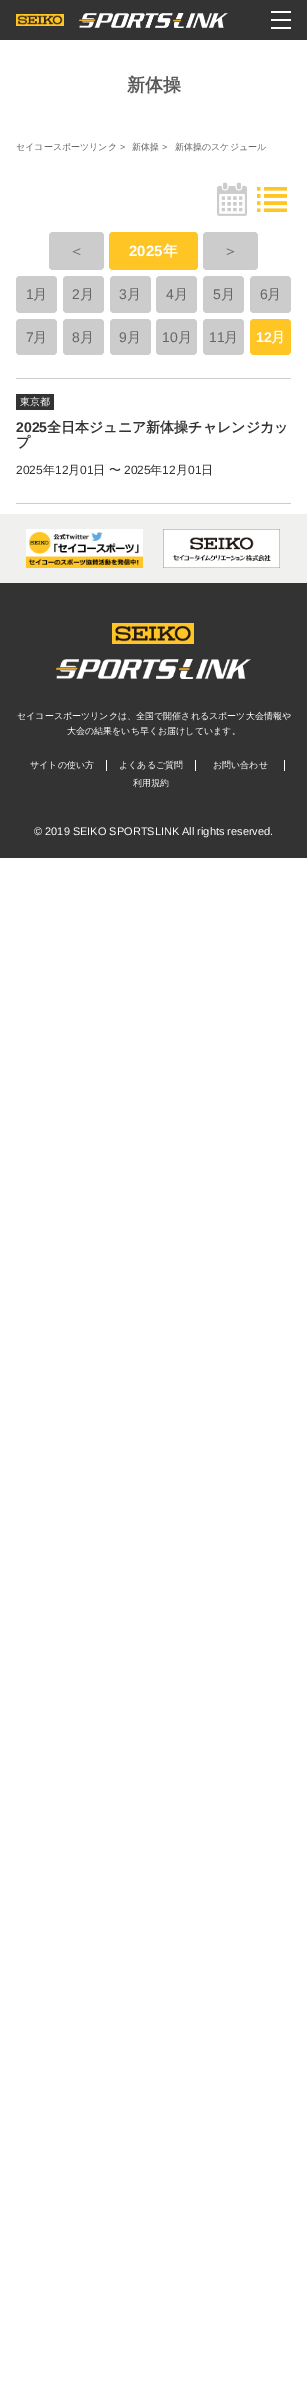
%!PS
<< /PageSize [307 2383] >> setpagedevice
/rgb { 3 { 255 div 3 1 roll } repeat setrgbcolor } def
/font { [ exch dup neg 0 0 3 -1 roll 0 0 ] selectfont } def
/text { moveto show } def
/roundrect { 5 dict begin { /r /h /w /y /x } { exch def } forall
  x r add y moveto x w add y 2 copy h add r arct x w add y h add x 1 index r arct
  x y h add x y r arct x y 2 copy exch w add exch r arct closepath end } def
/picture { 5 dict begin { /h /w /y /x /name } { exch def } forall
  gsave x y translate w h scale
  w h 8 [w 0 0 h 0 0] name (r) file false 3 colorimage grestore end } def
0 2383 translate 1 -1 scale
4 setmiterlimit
255 255 255 rgb
0 0 307 2383 rectfill
51 51 51 rgb
0 0 307 40 rectfill
(img_01.rgb) 16 14 48 12 picture
(img_02.rgb) 79 13 149 15 picture
255 255 255 rgb
271 11 20 2 rectfill
271 19 20 2 rectfill
271 27 20 2 rectfill
(img_03.rgb) 217 182 30 34 picture
(img_04.rgb) 257 187 30 25 picture
204 204 204 rgb
49 232 55 38 4 roundrect fill
254 197 36 rgb
109 232 89 38 4 roundrect fill
204 204 204 rgb
203 232 55 38 4 roundrect fill
16 276 41 37 4 roundrect fill
63 276 41 37 4 roundrect fill
110 276 41 37 4 roundrect fill
156 276 41 37 4 roundrect fill
203 276 41 37 4 roundrect fill
250 276 41 37 4 roundrect fill
16 319 41 36 4 roundrect fill
63 319 41 36 4 roundrect fill
110 319 41 36 4 roundrect fill
156 319 41 36 4 roundrect fill
203 319 41 36 4 roundrect fill
254 197 36 rgb
250 319 41 36 4 roundrect fill
204 204 204 rgb
16 378 275 1 rectfill
16 503 275 1 rectfill
51 51 51 rgb
16 394 38 16 rectfill
240 240 239 rgb
0 514 307 69 rectfill
(img_05.rgb) 26 529 117 39 picture
(img_06.rgb) 163 529 117 39 picture
51 51 51 rgb
0 583 307 275 rectfill
(img_07.rgb) 112 623 82 21 picture
(img_08.rgb) 56 659 195 20 picture
255 255 255 rgb
106 760 1 11 rectfill
195 760 1 11 rectfill
284 760 1 11 rectfill
/WenQuanYiZenHei-Bold 18 font
89 89 89 rgb
(新体操) 127 91 text
/WenQuanYiZenHei-Medium 9 font
102 102 102 rgb
(セイコースポーツリンク) 16 150 text
/LiberationSans-Regular 9 font
(>) 120 150 text
/WenQuanYiZenHei-Medium 9 font
(新体操) 132 150 text
/LiberationSans-Regular 9 font
(>) 162 150 text
/WenQuanYiZenHei-Medium 9 font
(新体操のスケジュール) 175 150 text
/WenQuanYiZenHei-Medium 15 font
(＜) 69 256 text
/LiberationSans-Bold 15 font
255 255 255 rgb
(2025) 129 256 text
/WenQuanYiZenHei-Bold 15 font
(年) 163 256 text
/WenQuanYiZenHei-Medium 15 font
102 102 102 rgb
(＞) 223 256 text
/LiberationSans-Regular 14 font
(1) 26 299 text
/WenQuanYiZenHei-Medium 14 font
(月) 33 299 text
/LiberationSans-Regular 14 font
(2) 72 299 text
/WenQuanYiZenHei-Medium 14 font
(月) 80 299 text
/LiberationSans-Regular 14 font
(3) 119 299 text
/WenQuanYiZenHei-Medium 14 font
(月) 127 299 text
/LiberationSans-Regular 14 font
(4) 166 299 text
/WenQuanYiZenHei-Medium 14 font
(月) 174 299 text
/LiberationSans-Regular 14 font
(5) 213 299 text
/WenQuanYiZenHei-Medium 14 font
(月) 221 299 text
/LiberationSans-Regular 14 font
(6) 260 299 text
/WenQuanYiZenHei-Medium 14 font
(月) 267 299 text
/LiberationSans-Regular 14 font
(7) 26 342 text
/WenQuanYiZenHei-Medium 14 font
(月) 33 342 text
/LiberationSans-Regular 14 font
(8) 72 342 text
/WenQuanYiZenHei-Medium 14 font
(月) 80 342 text
/LiberationSans-Regular 14 font
(9) 119 342 text
/WenQuanYiZenHei-Medium 14 font
(月) 127 342 text
/LiberationSans-Regular 14 font
(10) 162 342 text
/WenQuanYiZenHei-Medium 14 font
(月) 178 342 text
/LiberationSans-Regular 14 font
(11) 209 342 text
/WenQuanYiZenHei-Medium 14 font
(月) 224 342 text
/LiberationSans-Bold 14 font
255 255 255 rgb
(12) 256 342 text
/WenQuanYiZenHei-Bold 14 font
(月) 271 342 text
/WenQuanYiZenHei-Medium 10 font
(東京都) 20 405 text
/LiberationSans-Bold 14 font
51 51 51 rgb
(2025) 16 432 text
/WenQuanYiZenHei-Bold 14 font
(全日本ジュニア新体操チャレンジカッ) 47 432 text
(プ) 16 447 text
/LiberationSans-Regular 12 font
(2025) 16 474 text
/WenQuanYiZenHei-Medium 12 font
(年) 43 474 text
/LiberationSans-Regular 12 font
(12) 55 474 text
/WenQuanYiZenHei-Medium 12 font
(月) 68 474 text
/LiberationSans-Regular 12 font
(01) 80 474 text
/WenQuanYiZenHei-Medium 12 font
(日 〜) 93 474 text
/LiberationSans-Regular 12 font
(2025) 124 474 text
/WenQuanYiZenHei-Medium 12 font
(年) 150 474 text
/LiberationSans-Regular 12 font
(12) 162 474 text
/WenQuanYiZenHei-Medium 12 font
(月) 176 474 text
/LiberationSans-Regular 12 font
(01) 188 474 text
/WenQuanYiZenHei-Medium 12 font
(日) 201 474 text
/WenQuanYiZenHei-Medium 9 font
255 255 255 rgb
(セイコースポーツリンクは、全国で開催されるスポーツ大会情報や) 17 719 text
(大会の結果をいち早くお届けしています。) 67 734 text
(サイトの使い方) 30 768 text
(よくあるご質問) 119 768 text
(お問い合わせ) 213 768 text
(利用規約) 133 786 text
/LiberationSans-Regular 11 font
(© 2019 SEIKO SPORTSLINK All rights reserved.) 34 835 text
showpage
